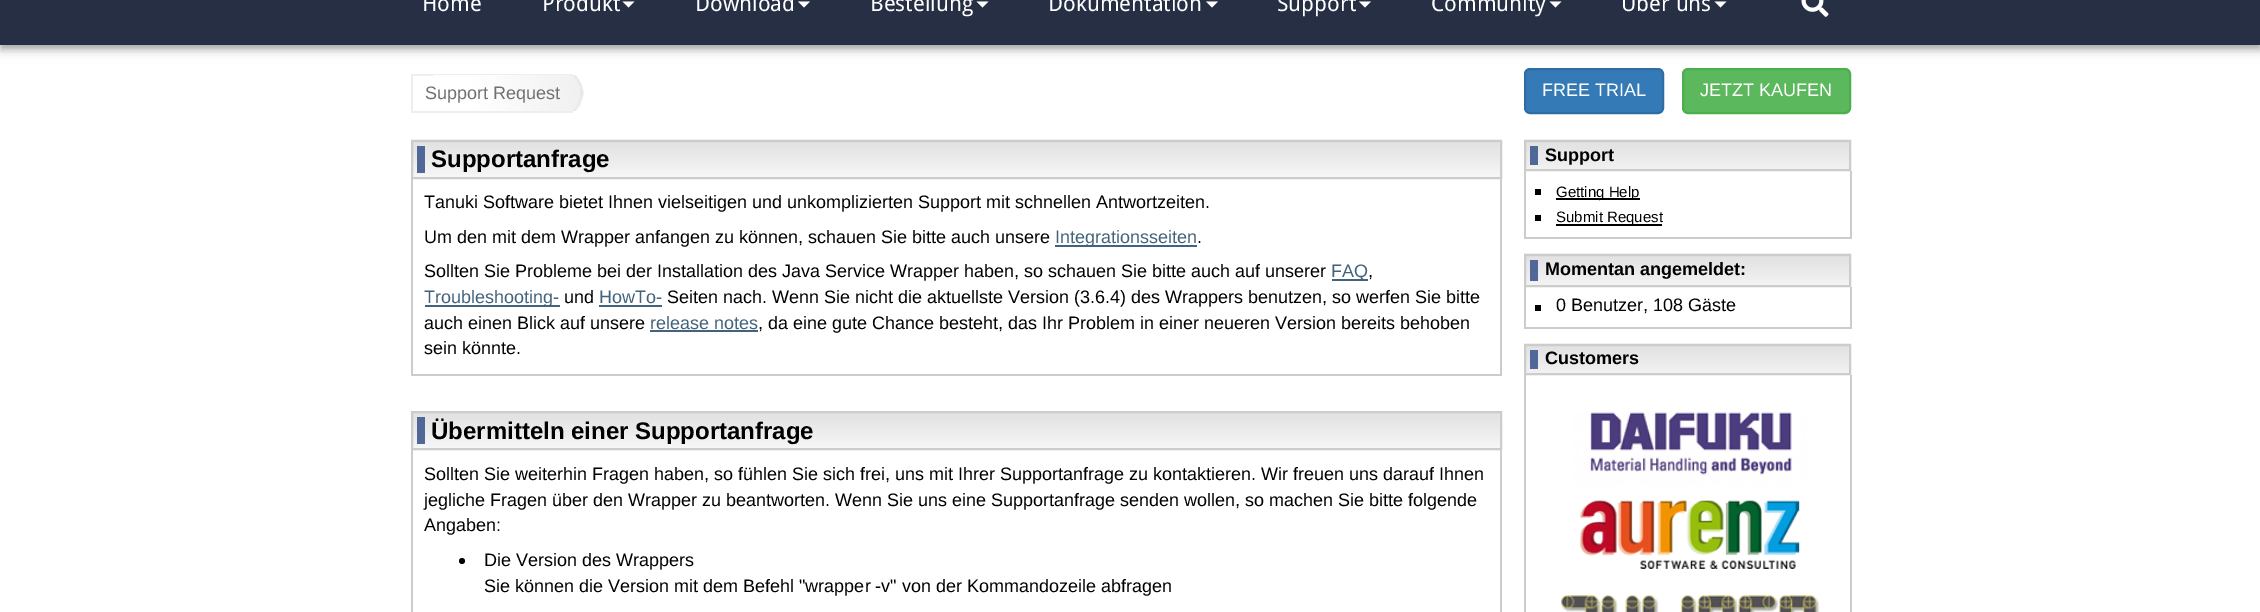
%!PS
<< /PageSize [2260 612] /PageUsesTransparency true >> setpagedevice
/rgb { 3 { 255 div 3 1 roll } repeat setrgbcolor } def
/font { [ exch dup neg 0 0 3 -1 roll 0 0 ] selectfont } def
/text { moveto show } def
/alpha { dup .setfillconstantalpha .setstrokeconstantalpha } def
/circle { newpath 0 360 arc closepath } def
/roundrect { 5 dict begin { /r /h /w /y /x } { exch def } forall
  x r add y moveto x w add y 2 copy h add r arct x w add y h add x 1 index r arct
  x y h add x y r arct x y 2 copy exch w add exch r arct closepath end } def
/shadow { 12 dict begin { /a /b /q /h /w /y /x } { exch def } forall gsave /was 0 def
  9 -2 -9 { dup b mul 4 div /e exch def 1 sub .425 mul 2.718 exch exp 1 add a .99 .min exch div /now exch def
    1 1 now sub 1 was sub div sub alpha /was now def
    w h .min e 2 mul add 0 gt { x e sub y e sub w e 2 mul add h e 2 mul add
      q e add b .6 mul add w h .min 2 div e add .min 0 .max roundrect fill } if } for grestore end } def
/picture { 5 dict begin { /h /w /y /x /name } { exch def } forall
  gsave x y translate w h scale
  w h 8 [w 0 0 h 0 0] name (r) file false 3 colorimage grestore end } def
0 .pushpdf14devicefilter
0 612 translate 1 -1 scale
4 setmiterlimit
255 255 255 rgb
0 0 2260 612 rectfill
0 0 0 rgb
2 -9 2257 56 0 3 0.2 shadow
51 122 183 rgb
1525 69 138 44 5 roundrect gsave fill grestore
46 109 164 rgb
2 setlinewidth
stroke
92 184 92 rgb
1683 69 167 44 5 roundrect gsave fill grestore
76 174 76 rgb
stroke
0 0 0 rgb
0 -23 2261 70 0 7.5 0.12 shadow
0 -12 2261 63 0 4 0.14 shadow
38 47 68 rgb
0 0 2260 45 rectfill
255 255 255 rgb
622.5 1.5 moveto 12 0 rlineto -6 6 rlineto closepath fill
798 1.5 moveto 12 0 rlineto -6 6 rlineto closepath fill
976.5 1.5 moveto 12 0 rlineto -6 6 rlineto closepath fill
1206 1.5 moveto 12 0 rlineto -6 6 rlineto closepath fill
1359 1.5 moveto 12 0 rlineto -6 6 rlineto closepath fill
1549.5 1.5 moveto 12 0 rlineto -6 6 rlineto closepath fill
1714.5 1.5 moveto 12 0 rlineto -6 6 rlineto closepath fill
(img_01.rgb) 1801 0 28 17 picture
238 238 238 rgb
411 74 2 39 rectfill
413 74 160 2 rectfill
413 111 160 2 rectfill
(img_02.rgb) 433 75 151 36 picture
(img_03.rgb) 411 139 1091 38 picture
204 204 204 rgb
412 141 1089 37 rectstroke
80 103 151 rgb
417 146 8 27 rectfill
204 204 204 rgb
1500 179 2 196 rectfill
411 374 1091 2 rectfill
411 179 2 196 rectfill
66 99 123 rgb
1055 245 142 2 rectfill
1332 279 36 2 rectfill
425 305 135 2 rectfill
599 305 63 2 rectfill
650 330 108 2 rectfill
(img_04.rgb) 413 413 1087 35 picture
204 204 204 rgb
412 412 1089 37 rectstroke
80 103 151 rgb
417 417 8 27 rectfill
204 204 204 rgb
1500 450 2 162 rectfill
411 450 2 162 rectfill
0 0 0 rgb
462 561 3 circle fill
(img_05.rgb) 1524 139 327 30 picture
204 204 204 rgb
1525 141 325 29 rectstroke
80 103 151 rgb
1530 146 8 19 rectfill
204 204 204 rgb
1850 171 2 68 rectfill
1524 237 327 2 rectfill
1524 171 2 68 rectfill
0 0 0 rgb
1535 189 6 6 rectfill
1556 198 84 2 rectfill
1535 215 6 6 rectfill
1556 224 106 2 rectfill
(img_06.rgb) 1524 253 327 32 picture
204 204 204 rgb
1525 255 325 31 rectstroke
80 103 151 rgb
1530 260 8 21 rectfill
204 204 204 rgb
1850 287 2 42 rectfill
1524 327 327 2 rectfill
1524 287 2 42 rectfill
0 0 0 rgb
1535 305 6 6 rectfill
(img_05.rgb) 1524 343 327 30 picture
204 204 204 rgb
1525 345 325 29 rectstroke
80 103 151 rgb
1530 350 8 19 rectfill
204 204 204 rgb
1850 375 2 237 rectfill
1524 375 2 237 rectfill
(img_07.rgb) 1560 412 260 200 picture
/DroidSans-Regular 22 font
255 255 255 rgb
(Home) 422 11 text
(Produkt) 542 11 text
(Download) 695 11 text
(Bestellung) 870 11 text
(Dokumentation) 1048 11 text
(Support) 1277 11 text
(Community) 1431 11 text
(Über uns) 1621 11 text
/LiberationSans-Regular 18 font
112 112 112 rgb
(Support Request) 425 99 text
255 255 255 rgb
(FREE TRIAL) 1542 96 text
(JETZT KAUFEN) 1700 96 text
/LiberationSans-Bold 24 font
0 0 0 rgb
(Supportanfrage) 431 167 text
/LiberationSans-Regular 18 font
(Tanuki Software bietet Ihnen vielseitigen und unkomplizierten Support mit schnellen Antwortzeiten.) 424 208 text
(Um den mit dem Wrapper anfangen zu können, schauen Sie bitte auch unsere) 424 243 text
66 99 123 rgb
(Integrationsseiten) 1055 243 text
0 0 0 rgb
(.) 1197 243 text
(Sollten Sie Probleme bei der Installation des Java Service Wrapper haben, so schauen Sie bitte auch auf unserer) 424 277 text
66 99 123 rgb
(FAQ) 1331 277 text
0 0 0 rgb
(,) 1368 277 text
66 99 123 rgb
(Troubleshooting-) 424 303 text
0 0 0 rgb
(und) 564 303 text
66 99 123 rgb
(HowTo-) 599 303 text
0 0 0 rgb
(Seiten nach. Wenn Sie nicht die aktuellste Version \(3.6.4\) des Wrappers benutzen, so werfen Sie bitte) 667 303 text
(auch einen Blick auf unsere) 424 329 text
66 99 123 rgb
(release notes) 650 329 text
0 0 0 rgb
(, da eine gute Chance besteht, das Ihr Problem in einer neueren Version bereits behoben) 758 329 text
(sein könnte.) 424 354 text
/LiberationSans-Bold 24 font
(Übermitteln einer Supportanfrage) 431 439 text
/LiberationSans-Regular 18 font
(Sollten Sie weiterhin Fragen haben, so fühlen Sie sich frei, uns mit Ihrer Supportanfrage zu kontaktieren. Wir freuen uns darauf Ihnen) 424 480 text
(jegliche Fragen über den Wrapper zu beantworten. Wenn Sie uns eine Supportanfrage senden wollen, so machen Sie bitte folgende) 424 506 text
(Angaben:) 424 531 text
(Die Version des Wrappers) 484 566 text
(Sie können die Version mit dem Befehl "wrapper -v" von der Kommandozeile abfragen) 484 592 text
/LiberationSans-Bold 18 font
(Support) 1545 161 text
/LiberationSans-Regular 15 font
(Getting Help) 1556 197 text
(Submit Request) 1556 222 text
/LiberationSans-Bold 18 font
(Momentan angemeldet:) 1545 275 text
/LiberationSans-Regular 18 font
(0 Benutzer, 108 Gäste) 1556 311 text
/LiberationSans-Bold 18 font
(Customers) 1545 364 text
.poppdf14devicefilter showpage
